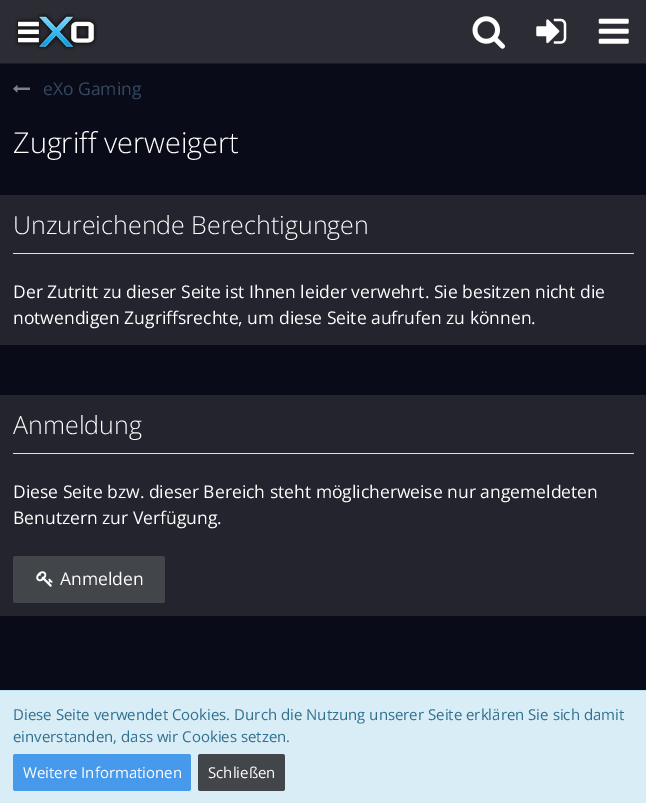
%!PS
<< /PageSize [646 803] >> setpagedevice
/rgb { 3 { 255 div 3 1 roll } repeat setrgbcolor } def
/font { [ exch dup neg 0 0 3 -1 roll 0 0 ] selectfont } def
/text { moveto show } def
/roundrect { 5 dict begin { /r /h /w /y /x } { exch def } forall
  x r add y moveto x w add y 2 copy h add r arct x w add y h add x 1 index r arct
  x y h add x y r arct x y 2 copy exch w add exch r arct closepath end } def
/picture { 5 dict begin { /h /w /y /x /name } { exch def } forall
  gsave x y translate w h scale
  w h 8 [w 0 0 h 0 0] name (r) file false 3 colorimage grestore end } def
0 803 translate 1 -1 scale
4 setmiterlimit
10 11 24 rgb
0 0 646 803 rectfill
44 44 52 rgb
0 0 646 63 rectfill
(img_01.rgb) 15 13 83 37 picture
(img_02.rgb) 472 16 33 33 picture
(img_03.rgb) 536 18 31 26 picture
(img_04.rgb) 598 18 31 26 picture
24 25 36 rgb
0 63 646 1 rectfill
(img_05.rgb) 13 85 17 8 picture
35 36 45 rgb
0 195 646 150 rectfill
224 224 224 rgb
13 253 621 1 rectfill
35 36 45 rgb
0 395 646 221 rectfill
224 224 224 rgb
13 453 621 1 rectfill
66 69 73 rgb
13 556 152 47 2.5 roundrect fill
(img_06.rgb) 36 571 17 16 picture
217 237 247 rgb
0 691 646 112 rectfill
188 223 241 rgb
0 690 646 1 rectfill
71 153 235 rgb
13 754 178 37 2.5 roundrect fill
66 69 73 rgb
198 754 87 37 2.5 roundrect fill
/OpenSans-Regular 17.5 font
52 73 94 rgb
(eXo Gaming) 43 95 text
/OpenSans-Light 28.75 font
255 255 255 rgb
(Zugriff verweigert) 13 153 text
/OpenSans-Light 25 font
(Unzureichende Berechtigungen) 13 234 text
/OpenSans-Regular 17.5 font
(Der Zutritt zu dieser Seite ist Ihnen leider verwehrt. Sie besitzen nicht die) 13 298 text
(notwendigen Zugriffsrechte, um diese Seite aufrufen zu können.) 13 324 text
/OpenSans-Light 25 font
(Anmeldung) 13 434 text
/OpenSans-Regular 17.5 font
(Diese Seite bzw. dieser Bereich steht möglicherweise nur angemeldeten) 13 498 text
(Benutzern zur Verfügung.) 13 524 text
(Anmelden) 60 585 text
/OpenSans-Regular 15 font
49 112 143 rgb
(Diese Seite verwendet Cookies. Durch die Nutzung unserer Seite erklären Sie sich damit) 13 720 text
(einverstanden, dass wir Cookies setzen.) 13 742 text
255 255 255 rgb
(Weitere Informationen) 23 778 text
(Schließen) 208 778 text
showpage
